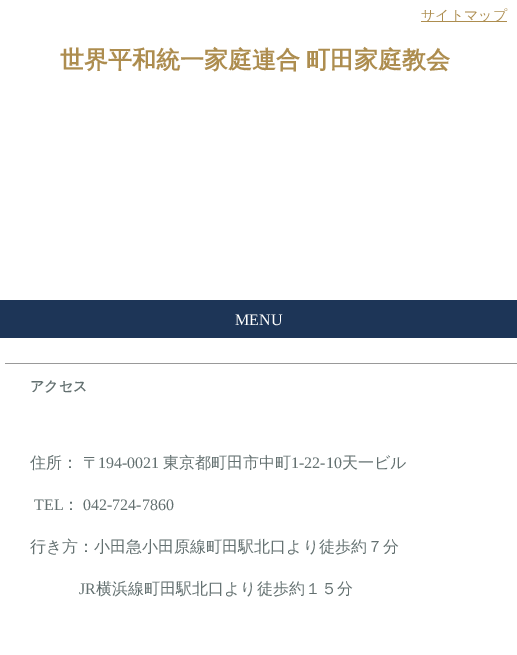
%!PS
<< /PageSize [517 655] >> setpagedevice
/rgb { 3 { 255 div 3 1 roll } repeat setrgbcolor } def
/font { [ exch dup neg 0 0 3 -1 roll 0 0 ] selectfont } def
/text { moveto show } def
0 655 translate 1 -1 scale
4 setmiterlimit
255 255 255 rgb
0 0 517 655 rectfill
173 141 79 rgb
421 21 86 1 rectfill
29 53 87 rgb
0 300 517 38 rectfill
153 153 153 rgb
5 363 512 1 rectfill
/WenQuanYiZenHei-Medium 14 font
173 141 79 rgb
(サイトマップ) 421 20 text
/WenQuanYiZenHei-Bold 24 font
60 68 moveto -1 0 32 (世界平和統一家庭連合 町田家庭教会) widthshow
/LiberationSerif-Regular 16 font
255 255 255 rgb
(MENU) 235 325 text
/WenQuanYiZenHei-Bold 14 font
99 112 112 rgb
(アクセス) 30 391 text
/WenQuanYiZenHei-Medium 16 font
(住所： 〒) 30 468 text
/LiberationSerif-Regular 16 font
(194-0021) 98 468 text
/WenQuanYiZenHei-Medium 16 font
(東京都町田市中町) 163 468 text
/LiberationSerif-Regular 16 font
(1-22-10) 291 468 text
/WenQuanYiZenHei-Medium 16 font
(天一ビル) 342 468 text
/LiberationSerif-Regular 16 font
(TEL) 34 510 text
/WenQuanYiZenHei-Medium 16 font
(：) 63 510 text
/LiberationSerif-Regular 16 font
(042-724-7860) 83 510 text
/WenQuanYiZenHei-Medium 16 font
(行き方：小田急小田原線町田駅北口より徒歩約７分) 30 552 text
/LiberationSerif-Regular 16 font
(JR) 79 594 text
/WenQuanYiZenHei-Medium 16 font
(横浜線町田駅北口より徒歩約１５分) 96 594 text
showpage
